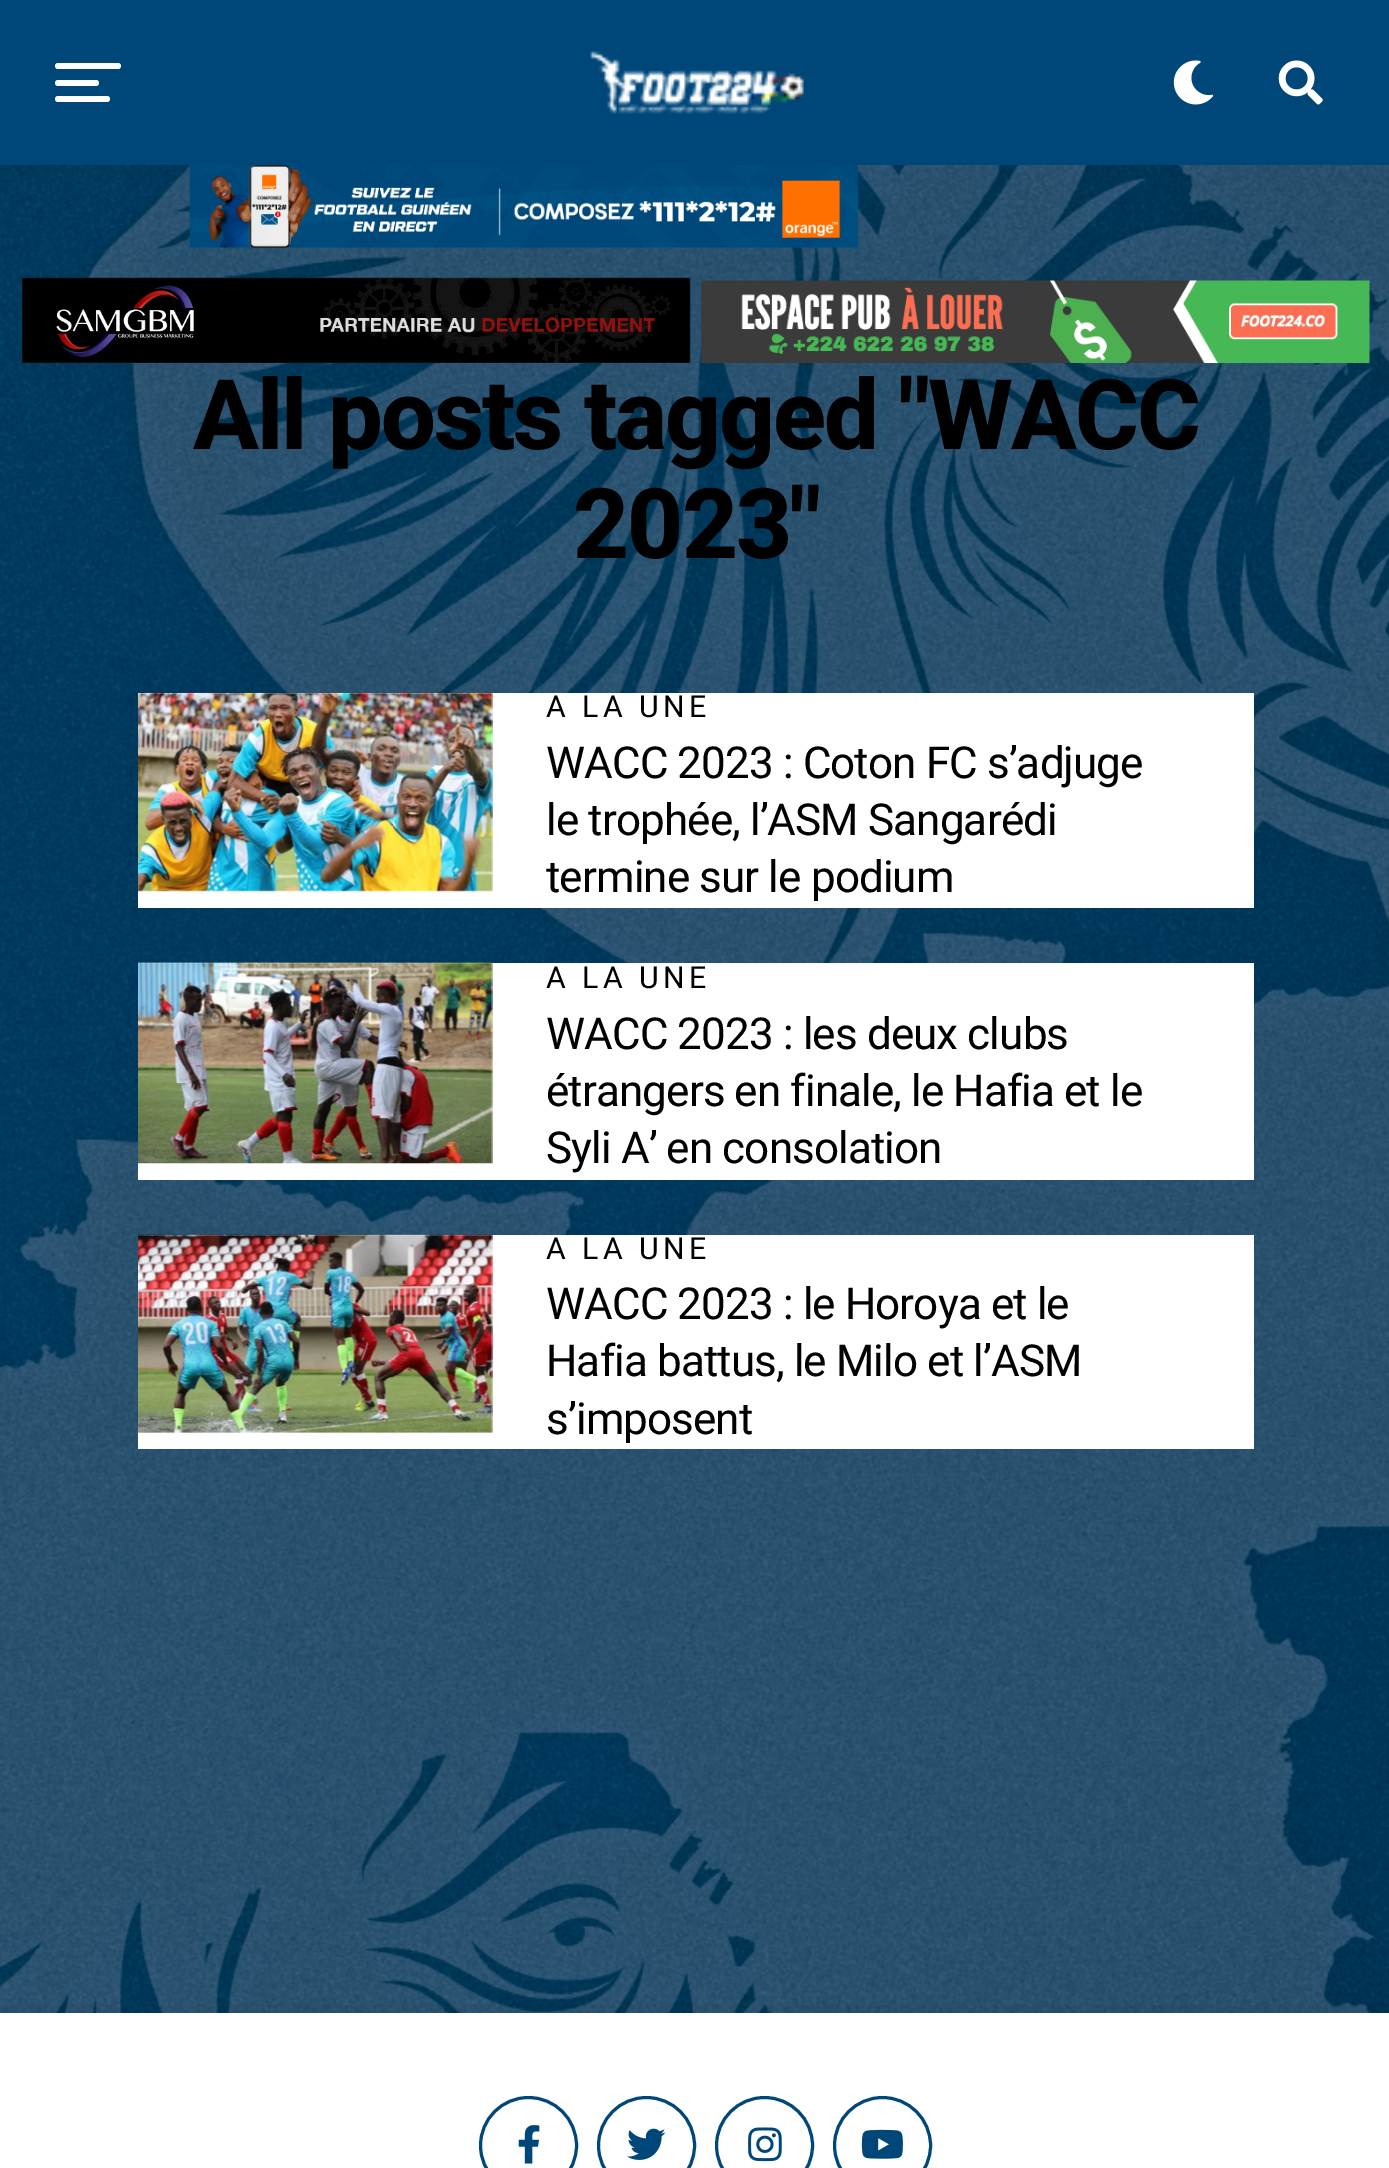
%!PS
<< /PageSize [1389 2168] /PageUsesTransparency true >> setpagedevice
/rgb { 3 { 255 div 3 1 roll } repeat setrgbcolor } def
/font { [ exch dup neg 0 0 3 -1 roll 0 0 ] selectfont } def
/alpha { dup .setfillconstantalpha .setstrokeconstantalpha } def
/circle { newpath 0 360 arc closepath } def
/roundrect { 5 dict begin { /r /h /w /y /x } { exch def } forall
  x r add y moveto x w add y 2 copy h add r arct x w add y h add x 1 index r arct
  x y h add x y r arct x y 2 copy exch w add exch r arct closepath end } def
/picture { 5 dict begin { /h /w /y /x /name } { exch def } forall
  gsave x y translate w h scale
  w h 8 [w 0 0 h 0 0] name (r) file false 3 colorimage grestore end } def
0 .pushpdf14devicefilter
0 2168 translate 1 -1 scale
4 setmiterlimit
255 255 255 rgb
0 0 1389 2168 rectfill
(img_01.rgb) 0 165 1389 1848 picture
0 71 121 rgb
0 0 1389 165 rectfill
255 255 255 rgb
55 63 66 6 3 roundrect fill
55 80 44 6 3 roundrect fill
55 96 55 6 3 roundrect fill
(img_02.rgb) 590 51 214 63 picture
(img_03.rgb) 1173 60 41 45 picture
(img_04.rgb) 1278 60 45 45 picture
(img_05.rgb) 189 165 669 83 picture
(img_06.rgb) 22 277 669 86 picture
(img_07.rgb) 701 280 669 83 picture
138 693 1116 215 rectfill
(img_08.rgb) 138 692 355 200 picture
138 963 1116 217 rectfill
(img_09.rgb) 138 962 355 202 picture
138 1235 1116 214 rectfill
(img_10.rgb) 138 1234 355 199 picture
0.03 alpha
0 0 0 rgb
0 2005 1389 8 rectfill
1 alpha
0 71 121 rgb
3 setlinewidth
528.5 2145.5 48 circle stroke
(img_11.rgb) 518 2125 22 39 picture
646.5 2145.5 48 circle stroke
(img_12.rgb) 627 2128 39 32 picture
764.5 2145.5 48 circle stroke
(img_13.rgb) 748 2127 34 35 picture
882.5 2145.5 48 circle stroke
(img_14.rgb) 861 2129 42 30 picture
/Roboto-ExtraBold 97.5 font
0 0 0 rgb
193 449 moveto -1.95 0 (All posts tagged "WACC) ashow
573 558 moveto -1.95 0 (2023") ashow
/Roboto-Regular 30.25 font
546 717 moveto 4.5 0 (A LA UNE) ashow
/Roboto-Regular 44 font
546 778 moveto -0.9 0 (WACC 2023 : Coton FC s’adjuge) ashow
546 835 moveto -0.9 0 (le trophée, l’ASM Sangarédi) ashow
546 892 moveto -0.9 0 (termine sur le podium) ashow
/Roboto-Regular 30.25 font
546 988 moveto 4.5 0 (A LA UNE) ashow
/Roboto-Regular 44 font
546 1049 moveto -0.9 0 (WACC 2023 : les deux clubs) ashow
546 1106 moveto -0.9 0 (étrangers en finale, le Hafia et le) ashow
546 1163 moveto -0.9 0 (Syli A’ en consolation) ashow
/Roboto-Regular 30.25 font
546 1259 moveto 4.5 0 (A LA UNE) ashow
/Roboto-Regular 44 font
546 1319 moveto -0.9 0 (WACC 2023 : le Horoya et le) ashow
546 1376 moveto -0.9 0 (Hafia battus, le Milo et l’ASM) ashow
546 1434 moveto -0.9 0 (s’imposent) ashow
.poppdf14devicefilter showpage
